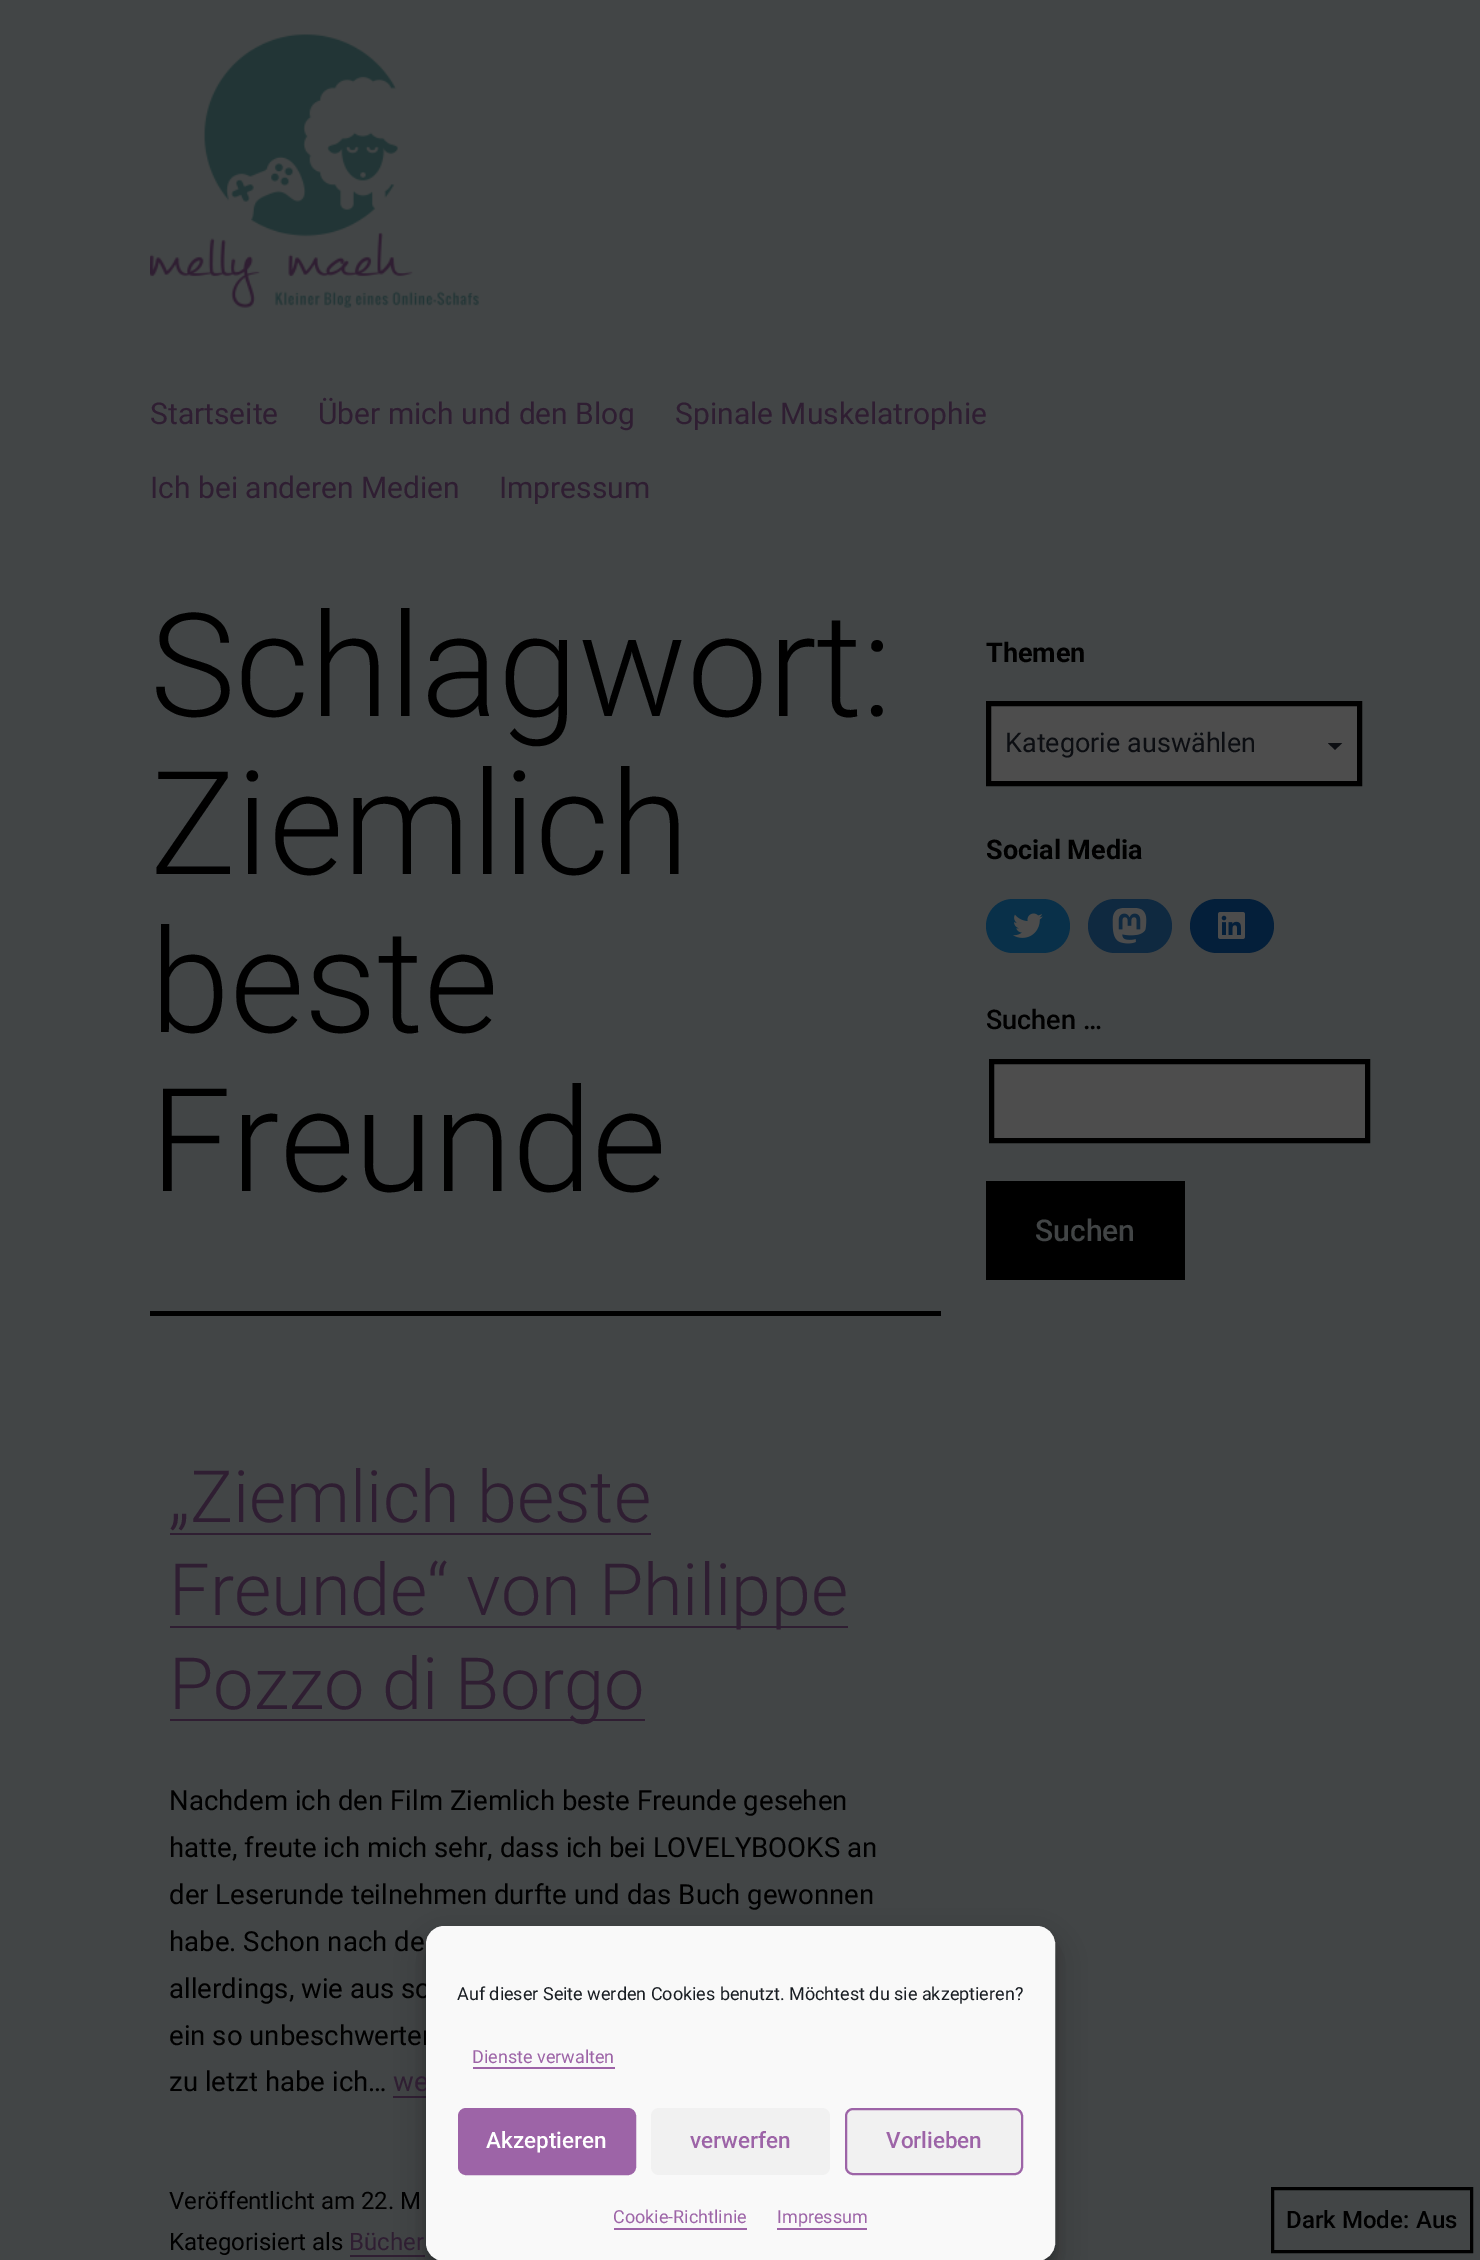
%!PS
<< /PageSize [1480 2260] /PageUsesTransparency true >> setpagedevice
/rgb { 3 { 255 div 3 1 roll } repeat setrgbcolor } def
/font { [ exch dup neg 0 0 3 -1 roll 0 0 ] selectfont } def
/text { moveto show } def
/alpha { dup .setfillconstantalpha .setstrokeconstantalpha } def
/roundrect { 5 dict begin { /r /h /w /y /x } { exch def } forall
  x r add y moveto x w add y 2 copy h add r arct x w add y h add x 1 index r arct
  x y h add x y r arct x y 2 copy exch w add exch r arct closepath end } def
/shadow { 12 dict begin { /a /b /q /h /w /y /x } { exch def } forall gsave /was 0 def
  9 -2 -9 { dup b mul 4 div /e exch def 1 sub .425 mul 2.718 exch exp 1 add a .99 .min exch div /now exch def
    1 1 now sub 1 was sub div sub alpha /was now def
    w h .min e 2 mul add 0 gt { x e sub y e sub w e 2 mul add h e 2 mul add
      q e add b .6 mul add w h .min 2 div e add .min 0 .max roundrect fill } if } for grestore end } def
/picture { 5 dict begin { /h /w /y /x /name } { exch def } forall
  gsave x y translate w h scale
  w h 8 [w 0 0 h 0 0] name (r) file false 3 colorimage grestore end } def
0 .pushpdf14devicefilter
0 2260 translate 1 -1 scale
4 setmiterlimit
66 69 70 rgb
0 0 1480 2260 rectfill
(img_01.rgb) 150 34 329 274 picture
0 0 0 rgb
150 1311 791 5 rectfill
47 30 50 rgb
170 1533 481 2 rectfill
170 1626 678 2 rectfill
170 1719 475 2 rectfill
393 2096 33 2 rectfill
350 2255 75 2 rectfill
77 77 77 rgb
991 706 366 75 rectfill
gsave
1328 743 15 15 rectclip
12 14 18 rgb
1327.5 742.5 moveto 15 0 rlineto -7.5 7.5 rlineto closepath fill
grestore
0 0 0 rgb
5 setlinewidth
988.5 703.5 371 80 rectstroke
9 48 73 rgb
986 899 84 54 27 roundrect fill
(img_02.rgb) 1013 913 30 25 picture
15 41 64 rgb
1088 899 84 54 27 roundrect fill
(img_03.rgb) 1112 908 35 36 picture
4 31 58 rgb
1190 899 84 54 27 roundrect fill
(img_04.rgb) 1218 912 27 27 picture
77 77 77 rgb
991.5 1061.5 moveto 376 0 rlineto 0 79 rlineto -376 0 rlineto closepath gsave fill grestore
0 0 0 rgb
stroke
986 1181 199 99 rectfill
426 1935 629 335 18 4.5 0.23 shadow
426 1941 629 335 18 15 0.19 shadow
3 setlinewidth
1272.5 2188.5 199 63 rectstroke
/Roboto-Regular 30 font
47 30 50 rgb
(Startseite) 150 424 text
(Über mich und den Blog) 318 424 text
(Spinale Muskelatrophie) 675 424 text
(Ich bei anderen Medien) 150 498 text
(Impressum) 499 498 text
/Roboto-Light 144 font
0 0 0 rgb
(Schlagwort:) 150 716 text
(Ziemlich) 150 874 text
(beste) 150 1032 text
(Freunde) 150 1191 text
/Roboto-Light 72 font
47 30 50 rgb
(„Ziemlich beste) 169 1522 text
(Freunde“ von Philippe) 169 1615 text
(Pozzo di Borgo) 169 1709 text
/Roboto-Regular 27.6 font
0 0 0 rgb
(Nachdem ich den Film Ziemlich beste Freunde gesehen) 169 1810 text
(hatte, freute ich mich sehr, dass ich bei LOVELYBOOKS an) 169 1857 text
(der Leserunde teilnehmen durfte und das Buch gewonnen) 169 1904 text
(habe. Schon nach de) 169 1951 text
(allerdings, wie aus so) 169 1998 text
(ein so unbeschwerter) 169 2045 text
(zu letzt habe ich…) 169 2091 text
47 30 50 rgb
(we) 393 2091 text
/Roboto-Regular 24 font
0 0 0 rgb
(Veröffentlicht am 22. M) 169 2209 text
(Kategorisiert als) 169 2250 text
47 30 50 rgb
(Bücher) 349 2250 text
/Roboto-Bold 27 font
0 0 0 rgb
(Themen) 986 662 text
/Roboto-Regular 27 font
12 14 18 rgb
(Kategorie auswählen) 1005 752 text
/Roboto-Bold 27 font
0 0 0 rgb
(Social Media) 986 859 text
/Roboto-Medium 27 font
(Suchen …) 986 1029 text
/Roboto-Medium 30 font
66 69 70 rgb
(Suchen) 1035 1241 text
249 249 249 rgb
427 1927 627 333 17 roundrect gsave fill grestore
2 setlinewidth
stroke
/Roboto-Regular 18 font
25 30 35 rgb
(Auf dieser Seite werden Cookies benutzt. Möchtest du sie akzeptieren?) 457 2000 text
157 100 167 rgb
(Dienste verwalten) 472 2063 text
473 2067 142 2 rectfill
459 2109 176 65 7 roundrect gsave fill grestore
stroke
/Roboto-Medium 22.5 font
255 255 255 rgb
(Akzeptieren) 486 2148 text
241 241 241 rgb
651 2108 179 67 8 roundrect fill
157 100 167 rgb
(verwerfen) 690 2148 text
241 241 241 rgb
846 2109 176 65 7 roundrect gsave fill grestore
157 100 167 rgb
stroke
(Vorlieben) 886 2148 text
/Roboto-Regular 18 font
(Cookie-Richtlinie) 613 2223 text
614 2228 133 2 rectfill
(Impressum) 777 2223 text
777 2228 90 2 rectfill
/Roboto-Medium 24 font
0 0 0 rgb
(Dark Mode:) 1286 2228 text
(Aus) 1416 2228 text
.poppdf14devicefilter showpage
